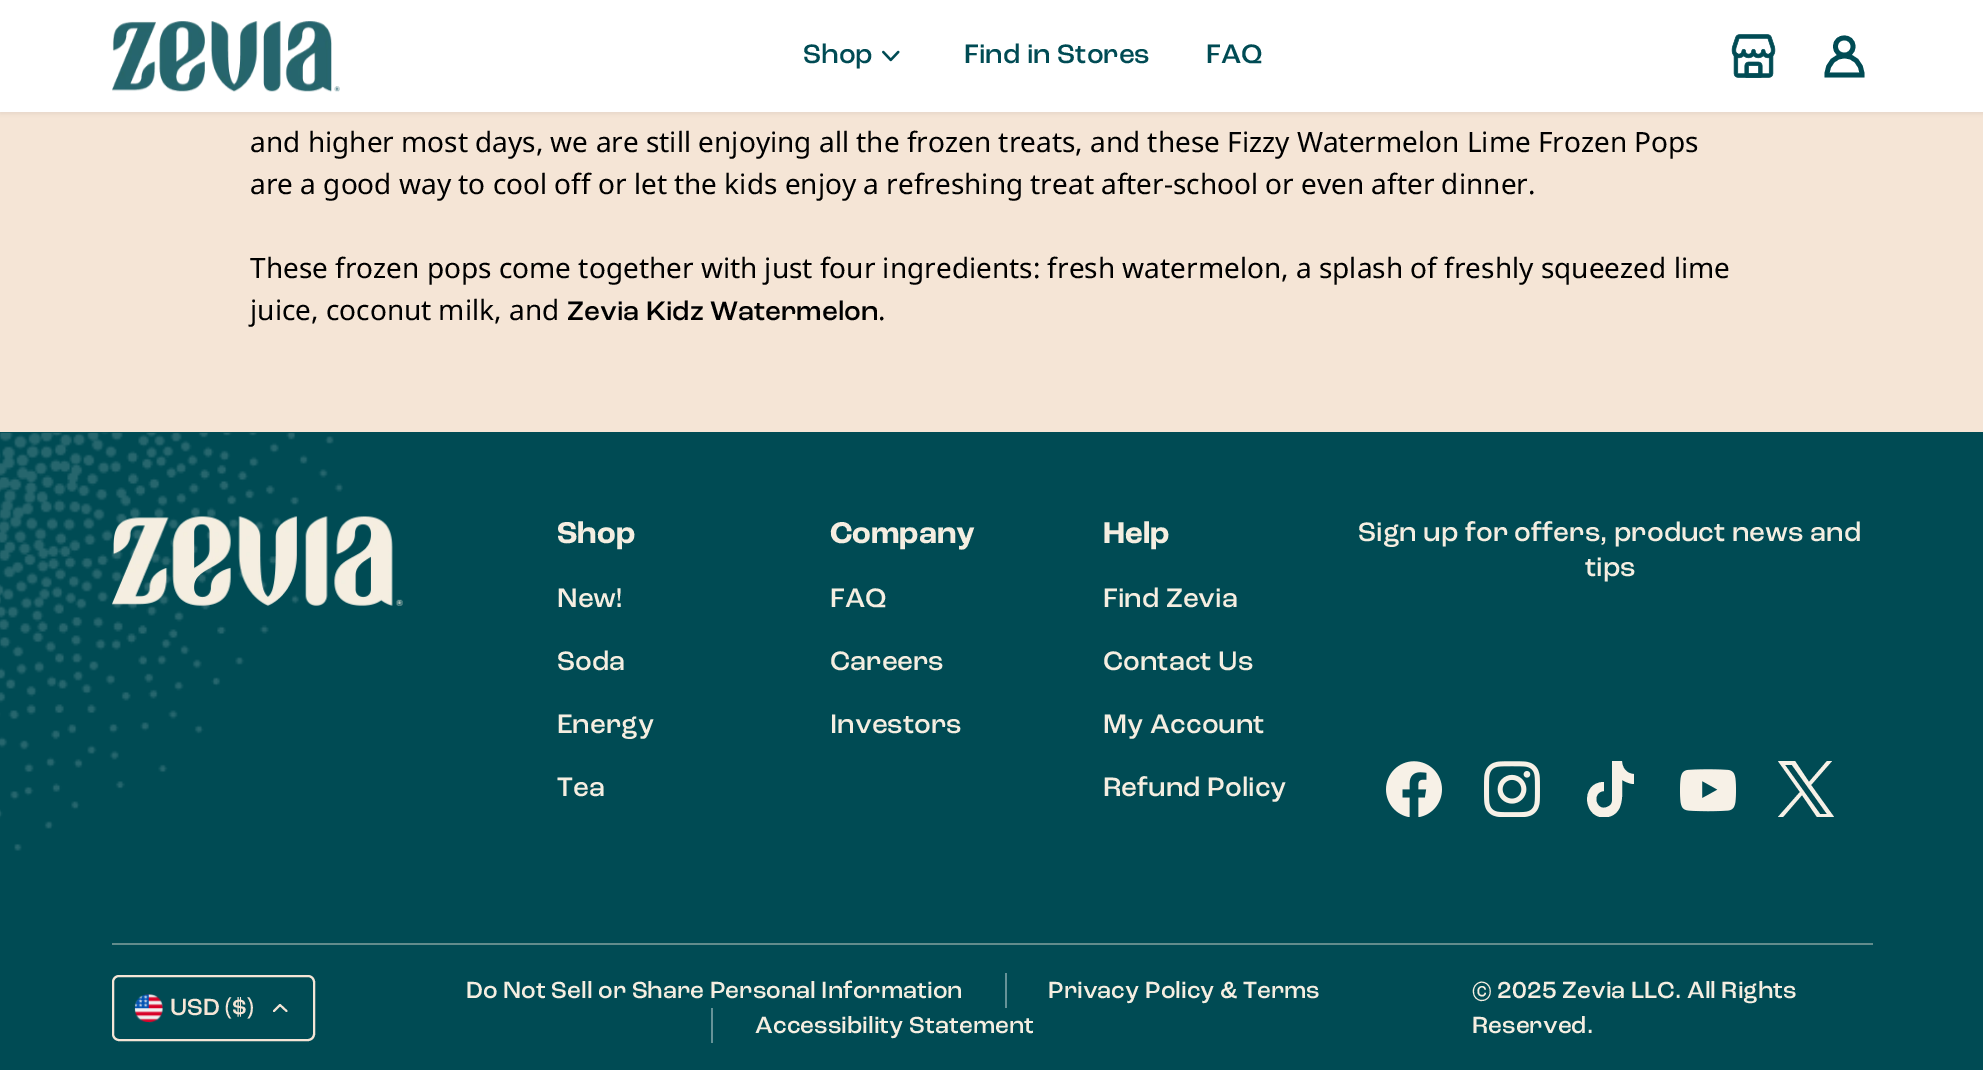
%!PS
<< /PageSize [1983 1070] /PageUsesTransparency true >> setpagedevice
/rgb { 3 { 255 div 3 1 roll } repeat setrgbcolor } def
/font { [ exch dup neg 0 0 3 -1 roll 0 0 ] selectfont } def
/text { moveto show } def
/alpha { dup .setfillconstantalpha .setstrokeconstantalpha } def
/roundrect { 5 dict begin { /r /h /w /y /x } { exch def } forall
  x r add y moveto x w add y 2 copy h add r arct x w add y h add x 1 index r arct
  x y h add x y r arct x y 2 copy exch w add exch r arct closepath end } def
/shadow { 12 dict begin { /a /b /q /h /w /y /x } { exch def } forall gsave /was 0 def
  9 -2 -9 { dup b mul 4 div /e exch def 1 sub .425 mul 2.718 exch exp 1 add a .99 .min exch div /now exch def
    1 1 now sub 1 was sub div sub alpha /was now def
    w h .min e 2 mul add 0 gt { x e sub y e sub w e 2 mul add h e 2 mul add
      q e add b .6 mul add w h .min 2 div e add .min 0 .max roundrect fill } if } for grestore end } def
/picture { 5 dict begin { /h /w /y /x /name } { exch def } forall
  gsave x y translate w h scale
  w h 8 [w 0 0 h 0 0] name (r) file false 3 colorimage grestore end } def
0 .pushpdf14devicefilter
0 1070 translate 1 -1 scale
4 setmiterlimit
245 229 214 rgb
0 0 1983 1070 rectfill
0 0 0 rgb
0 2 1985 112 0 2 0.05 shadow
255 255 255 rgb
0 0 1983 112 rectfill
(img_01.rgb) 112 21 228 71 picture
(img_02.rgb) 882 50 18 12 picture
(img_03.rgb) 1731 34 45 44 picture
0 75 84 rgb
4.7 setlinewidth
1 setlinecap
1853 46.5 moveto 0 11.5 -17.5 11.5 -17.5 0 rcurveto 0 -11.5 17.5 -11.5 17.5 0 rcurveto closepath 1827 75 moveto 0.5 -25.5 34.5 -25.5 35 0 rcurveto closepath stroke
0 432 1983 638 rectfill
(img_04.rgb) 0 432 343 419 picture
(img_05.rgb) 112 516 291 90 picture
(img_06.rgb) 1386 761 56 56 picture
(img_07.rgb) 1484 761 56 56 picture
gsave
1582 761 56 56 rectclip
247 241 231 rgb
1622 761 moveto -10 0 rlineto 0 40 rlineto 0 3 -2 5 -5 6 rcurveto -11 5 -16 -15 -3 -16 rcurveto 0 -9 rlineto -25 0 -21 40 4 35 rcurveto 17 -4 14 -24 14 -37 rcurveto 4 2 8 4 12 4 rcurveto 0 -10 rlineto -7 0 -12 -6 -12 -13 rcurveto closepath fill
grestore
(img_08.rgb) 1680 769 56 43 picture
247 241 231 rgb
1811 785 moveto 21 -24 rlineto -5 0 rlineto -18 21 rlineto -14 -21 rlineto -17 0 rlineto 22 31 rlineto -22 25 rlineto 5 0 rlineto 19 -22 rlineto 15 22 rlineto 17 0 rlineto closepath 1805 793 moveto -20 -28 rlineto 7 0 rlineto 35 49 rlineto -7 0 rlineto closepath fill
98 140 140 rgb
112 943 1761 2 rectfill
245 229 214 rgb
2 setlinewidth
0 setlinecap
113 976 201 64 6 roundrect stroke
(img_09.rgb) 134 994 29 29 picture
1.9 setlinewidth
1 setlinecap
1 setlinejoin
286.5 1011 moveto -6.5 -6 rlineto -6 6 rlineto stroke
102 147 152 rgb
1005 973 2 35 rectfill
711 1008 2 35 rectfill
/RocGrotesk-Medium 28 font
0 75 84 rgb
(Shop) 803 63 text
(Find in Stores) 964 63 text
(FAQ) 1206 63 text
/NotoSans-Regular 28 font
0 0 0 rgb
(and higher most days, we are still enjoying all the frozen treats, and these Fizzy Watermelon Lime Frozen Pops) 250 152 text
(are a good way to cool off or let the kids enjoy a refreshing treat after-school or even after dinner.) 250 194 text
(These frozen pops come together with just four ingredients: fresh watermelon, a splash of freshly squeezed lime) 250 278 text
(juice, coconut milk, and) 250 320 text
/RocGrotesk-Medium 28 font
(Zevia Kidz Watermelon) 567 320 text
/NotoSans-Regular 28 font
(.) 878 320 text
/RocGrotesk-Bold 31.5 font
245 238 225 rgb
(Shop) 557 543 text
/RocGrotesk-Medium 28 font
(New!) 557 607 text
(Soda) 557 670 text
(Energy) 557 733 text
(Tea) 557 796 text
/RocGrotesk-Bold 31.5 font
(Company) 830 543 text
/RocGrotesk-Medium 28 font
(FAQ) 830 607 text
(Careers) 830 670 text
(Investors) 830 733 text
/RocGrotesk-Bold 31.5 font
(Help) 1103 543 text
/RocGrotesk-Medium 28 font
(Find Zevia) 1103 607 text
(Contact Us) 1103 670 text
(My Account) 1103 733 text
(Refund Policy) 1103 796 text
(Sign up for offers, product news and) 1358 541 text
(tips) 1585 576 text
/RocGrotesk-Medium 24.5 font
245 229 214 rgb
(USD \($\)) 170 1015 text
245 238 225 rgb
(Do Not Sell or Share Personal Information) 466 998 text
(Privacy Policy & Terms) 1048 998 text
(Accessibility Statement) 755 1033 text
(© 2025 Zevia LLC. All Rights) 1472 998 text
(Reserved.) 1472 1033 text
.poppdf14devicefilter showpage
